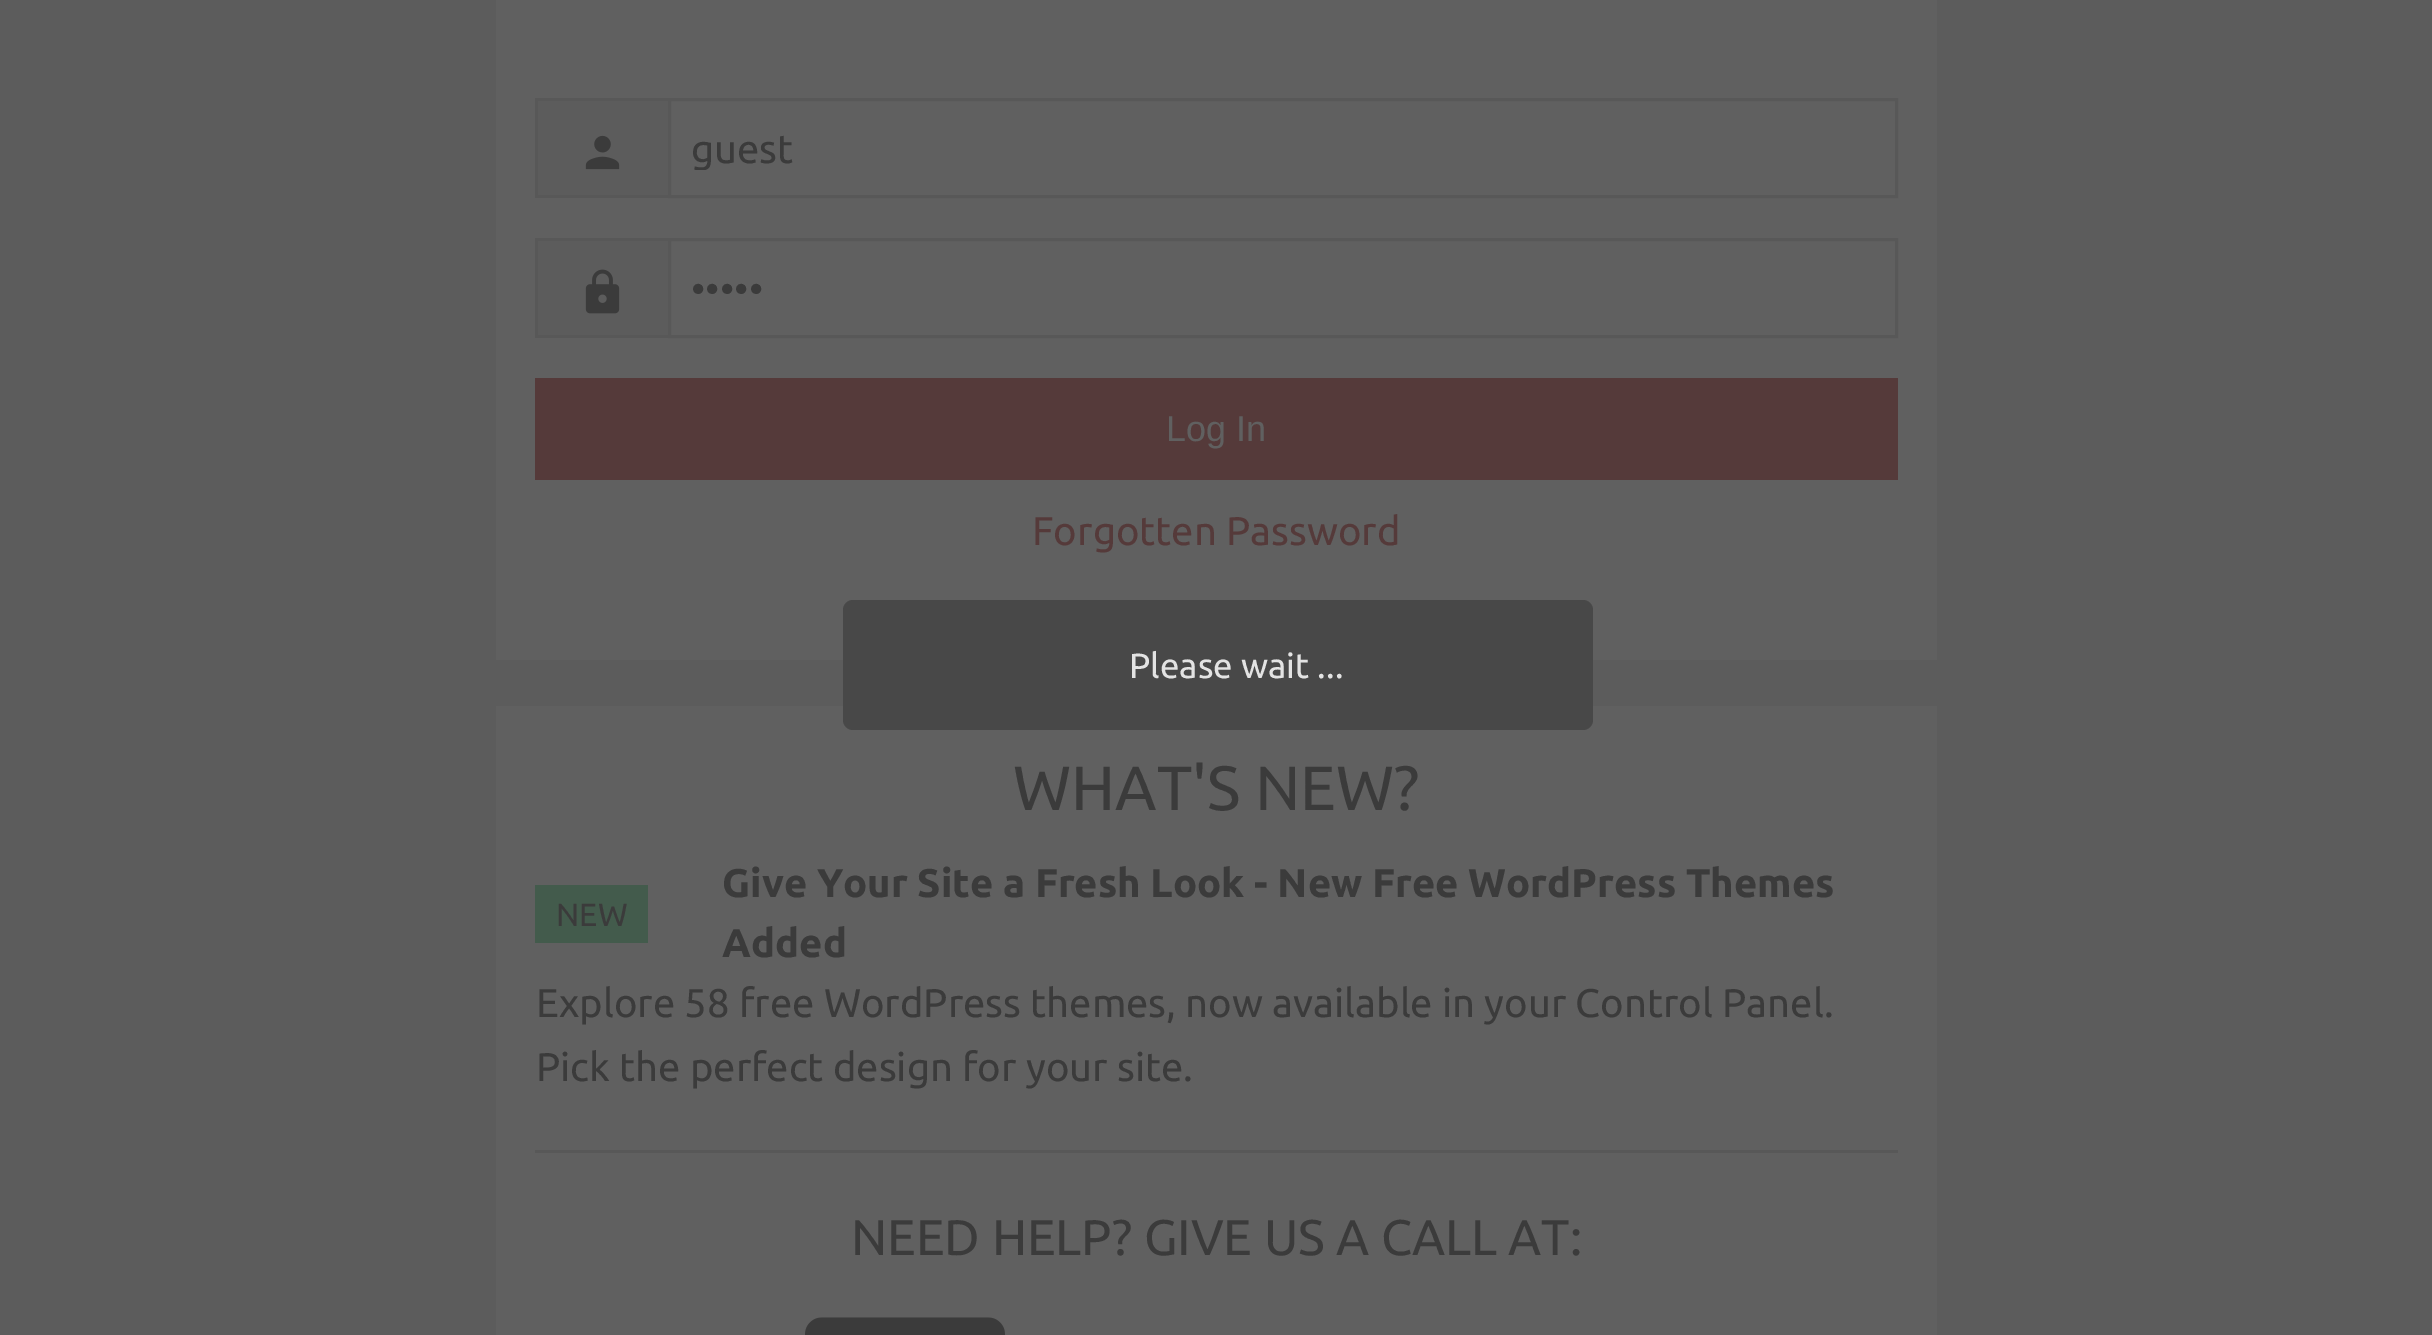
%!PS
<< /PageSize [2432 1335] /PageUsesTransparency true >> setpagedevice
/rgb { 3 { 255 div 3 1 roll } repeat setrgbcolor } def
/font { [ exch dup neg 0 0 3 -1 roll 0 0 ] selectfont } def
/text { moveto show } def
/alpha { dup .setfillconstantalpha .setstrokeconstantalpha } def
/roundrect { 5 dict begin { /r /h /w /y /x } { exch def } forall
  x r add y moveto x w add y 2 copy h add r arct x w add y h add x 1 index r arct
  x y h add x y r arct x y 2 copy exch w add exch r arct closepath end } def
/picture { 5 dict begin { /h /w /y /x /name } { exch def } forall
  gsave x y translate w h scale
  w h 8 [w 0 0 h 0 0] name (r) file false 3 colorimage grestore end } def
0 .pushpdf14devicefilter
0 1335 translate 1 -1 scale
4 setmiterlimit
92 92 92 rgb
0 0 2432 1335 rectfill
96 96 96 rgb
496 0 1441 660 rectfill
92 92 92 rgb
538 101 130 94 rectfill
88 88 88 rgb
535 98 133 3 rectfill
535 195 133 3 rectfill
535 98 3 100 rectfill
(img_01.rgb) 585 135 35 35 picture
3 setlinewidth
669.5 99.5 1227 97 rectstroke
92 92 92 rgb
538 241 130 94 rectfill
88 88 88 rgb
535 238 133 3 rectfill
535 335 133 3 rectfill
535 238 3 100 rectfill
(img_02.rgb) 585 269 35 45 picture
669.5 239.5 1227 97 rectstroke
85 58 58 rgb
535 378 1363 102 rectfill
96 96 96 rgb
496 706 1441 629 rectfill
67 91 76 rgb
535 885 113 58 rectfill
88 88 88 rgb
535 1150 1363 3 rectfill
(img_03.rgb) 805 1317 200 18 picture
0.85 alpha
68 68 68 rgb
843 600 750 130 10 roundrect fill
gsave
690 125 1185 45 rectclip
/Ubuntu-Regular 40 font
1 alpha
59 59 59 rgb
(guest) 691 163 text
grestore
/Ubuntu-Regular 40 font
1 alpha
59 59 59 rgb
(•••••) 691 303 text
/LiberationSans-Regular 36 font
96 96 96 rgb
(Log In) 1166 441 text
/Ubuntu-Regular 40 font
85 58 58 rgb
(Forgotten Password) 1032 545 text
/Ubuntu-Regular 62.5 font
59 59 59 rgb
(WHAT'S NEW?) 1013 810 text
/Ubuntu-Regular 32 font
(NEW) 556 926 text
/Ubuntu-Bold 40 font
(Give Your Site a Fresh Look - New Free WordPress Themes) 722 897 text
(Added) 722 957 text
/Ubuntu-Regular 40 font
(Explore 58 free WordPress themes, now available in your Control Panel.) 536 1017 text
(Pick the perfect design for your site.) 536 1081 text
/Ubuntu-Regular 50 font
(NEED HELP? GIVE US A CALL AT:) 851 1255 text
/Ubuntu-Regular 35 font
227 227 227 rgb
(Please wait ...) 1129 678 text
.poppdf14devicefilter showpage
